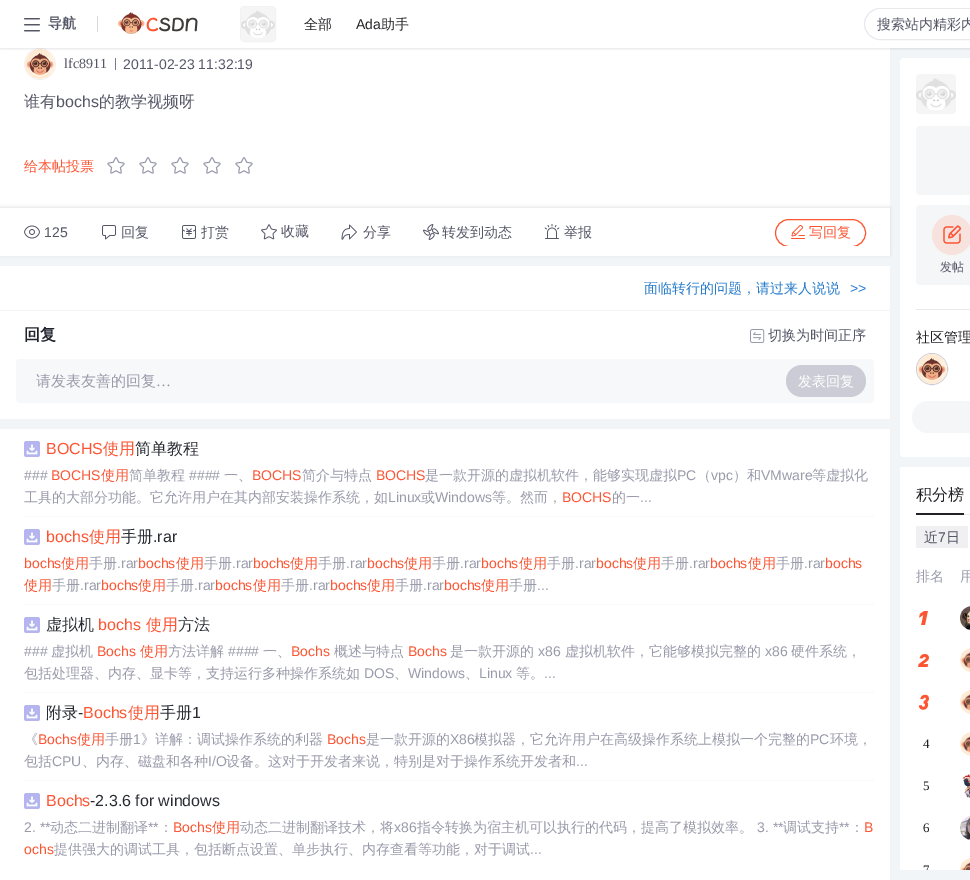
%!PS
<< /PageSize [970 880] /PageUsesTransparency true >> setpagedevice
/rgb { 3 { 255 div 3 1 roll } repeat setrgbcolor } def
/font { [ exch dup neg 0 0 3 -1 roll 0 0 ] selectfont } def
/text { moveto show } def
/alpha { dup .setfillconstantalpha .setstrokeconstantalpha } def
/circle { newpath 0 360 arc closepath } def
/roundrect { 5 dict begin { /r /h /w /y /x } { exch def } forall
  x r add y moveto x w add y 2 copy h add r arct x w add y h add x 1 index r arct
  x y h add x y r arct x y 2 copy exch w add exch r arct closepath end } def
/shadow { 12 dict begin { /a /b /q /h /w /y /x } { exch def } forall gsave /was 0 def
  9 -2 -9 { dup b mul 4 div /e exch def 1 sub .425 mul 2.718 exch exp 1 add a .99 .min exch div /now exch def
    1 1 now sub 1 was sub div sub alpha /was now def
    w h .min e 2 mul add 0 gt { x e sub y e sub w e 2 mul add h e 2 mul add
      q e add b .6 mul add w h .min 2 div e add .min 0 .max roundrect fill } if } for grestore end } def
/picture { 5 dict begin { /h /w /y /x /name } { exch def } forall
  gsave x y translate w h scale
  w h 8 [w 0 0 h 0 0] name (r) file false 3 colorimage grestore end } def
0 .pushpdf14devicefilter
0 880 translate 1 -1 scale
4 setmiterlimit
242 245 247 rgb
0 0 970 880 rectfill
255 255 255 rgb
0 48 890 160 rectfill
242 242 242 rgb
40 64 15.5 circle stroke
(img_04.rgb) 25 49 30 30 picture
0 0 0 rgb
0 1 970 48 0 1 0.1 shadow
255 255 255 rgb
0 0 970 48 rectfill
(img_01.rgb) 24 18 16 14 picture
216 216 216 rgb
97 16 1 16 0.5 roundrect fill
(img_02.rgb) 118 12 80 22 picture
242 242 242 rgb
240.5 6.5 35 35 3.5 roundrect stroke
(img_03.rgb) 241 7 34 34 picture
232 232 237 rgb
864.5 8.5 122 31 15.5 roundrect stroke
gsave
865 9 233 30 15 roundrect clip newpath
255 255 255 rgb
877 9 93 30 rectfill
grestore
119 120 136 rgb
115 58 1 12 rectfill
(img_05.rgb) 107 157 18 17 picture
(img_05.rgb) 139 157 18 17 picture
(img_05.rgb) 171 157 18 17 picture
(img_05.rgb) 203 157 18 17 picture
(img_05.rgb) 235 157 18 17 picture
18 18 18 rgb
0 207 890 48 0 1.5 0.1 shadow
255 255 255 rgb
0 208 890 48 rectfill
(img_06.rgb) 24 225 16 14 picture
(img_07.rgb) 102 225 14 15 picture
(img_08.rgb) 182 225 14 14 picture
(img_09.rgb) 261 224 16 16 picture
(img_10.rgb) 341 224 16 16 picture
(img_11.rgb) 423 224 16 16 picture
(img_12.rgb) 544 224 16 15 picture
gsave
0 218 890 28 rectclip
252 85 49 rgb
775.5 219.5 90 27 13.5 roundrect stroke
grestore
(img_13.rgb) 791 224 14 15 picture
0 266 890 44 rectfill
0 311 890 108 rectfill
(img_14.rgb) 750 329 15 14 picture
247 248 249 rgb
16 359 858 44 4 roundrect fill
204 204 215 rgb
786 365 80 32 16 roundrect fill
255 255 255 rgb
0 429 890 451 rectfill
247 247 252 rgb
24 516 850 1 rectfill
(img_15.rgb) 24 441 16 16 picture
24 604 850 1 rectfill
(img_15.rgb) 24 529 16 16 picture
24 692 850 1 rectfill
(img_15.rgb) 24 617 16 16 picture
24 780 850 1 rectfill
(img_15.rgb) 24 705 16 16 picture
(img_15.rgb) 24 793 16 16 picture
255 255 255 rgb
900 58 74 399 4 roundrect fill
(img_16.rgb) 916 74 40 40 picture
245 246 247 rgb
916 126 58 69 4 roundrect fill
916 205 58 80 4 roundrect fill
247 226 221 rgb
952 235 20 circle fill
(img_17.rgb) 943 225 19 19 picture
232 232 237 rgb
916 309 54 1 rectfill
204 204 216 rgb
932 369 15.5 circle stroke
(img_18.rgb) 917 354 30 30 picture
245 246 247 rgb
912 401 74 32 16 roundrect fill
255 255 255 rgb
900 467 70 403 rectfill
34 34 38 rgb
916 513 48 2 rectfill
232 232 237 rgb
964 514 6 1 rectfill
240 240 242 rgb
916 526 52 22 2 roundrect fill
(img_19.rgb) 919 611 9 14 picture
(img_20.rgb) 960 606 10 24 picture
(img_21.rgb) 918 654 11 13 picture
(img_22.rgb) 960 648 10 24 picture
(img_23.rgb) 919 694 10 16 picture
(img_22.rgb) 960 690 10 24 picture
(img_22.rgb) 960 732 10 24 picture
(img_24.rgb) 962 774 8 24 picture
(img_25.rgb) 960 816 10 24 picture
(img_26.rgb) 960 858 10 12 picture
/WenQuanYiZenHei-Bold 14 font
85 86 102 rgb
(导航) 48 28 text
/WenQuanYiZenHei-Medium 14 font
34 34 38 rgb
(全部) 304 29 text
/LiberationSans-Regular 14 font
(Ada) 356 29 text
/WenQuanYiZenHei-Medium 14 font
(助手) 381 29 text
85 86 102 rgb
(搜索站内精彩内) 877 29 text
/LiberationSerif-Regular 14 font
(lfc8911) 64 68 text
/LiberationSans-Regular 14 font
(2011-02-23 11:32:19) 123 69 text
/WenQuanYiZenHei-Medium 16 font
(谁有) 24 107 text
/LiberationSans-Regular 16 font
(bochs) 56 107 text
/WenQuanYiZenHei-Medium 16 font
(的教学视频呀) 99 107 text
/WenQuanYiZenHei-Medium 14 font
252 85 51 rgb
(给本帖投票) 24 171 text
/LiberationSans-Regular 14 font
85 86 102 rgb
(125) 44 237 text
/WenQuanYiZenHei-Medium 14 font
(回复) 121 237 text
(打赏) 201 237 text
(收藏) 281 236 text
(分享) 363 237 text
(转发到动态) 442 237 text
(举报) 564 237 text
252 85 51 rgb
(写回复) 809 237 text
39 124 204 rgb
(面临转行的问题，请过来人说说) 644 293 text
/LiberationSans-Regular 14 font
(>>) 850 293 text
/WenQuanYiZenHei-Bold 16 font
32 35 44 rgb
(回复) 24 340 text
/WenQuanYiZenHei-Medium 14 font
85 86 102 rgb
(切换为时间正序) 768 340 text
/WenQuanYiZenHei-Medium 15 font
153 154 170 rgb
(请发表友善的回复) 36 386 text
/LiberationSerif-Regular 15 font
(…) 156 386 text
/WenQuanYiZenHei-Medium 14 font
255 255 255 rgb
(发表回复) 798 386 text
/LiberationSans-Regular 16 font
252 85 51 rgb
(BOCHS) 46 454 text
/WenQuanYiZenHei-Medium 16 font
(使用) 103 454 text
40 43 49 rgb
(简单教程) 135 454 text
/LiberationSans-Regular 14 font
153 154 170 rgb
(###) 24 480 text
252 85 51 rgb
(BOCHS) 51 480 text
/WenQuanYiZenHei-Medium 14 font
(使用) 101 480 text
153 154 170 rgb
(简单教程) 129 480 text
/LiberationSans-Regular 14 font
(####) 189 480 text
/WenQuanYiZenHei-Medium 14 font
(一、) 224 480 text
/LiberationSans-Regular 14 font
252 85 51 rgb
(BOCHS) 252 480 text
/WenQuanYiZenHei-Medium 14 font
153 154 170 rgb
(简介与特点) 302 480 text
/LiberationSans-Regular 14 font
252 85 51 rgb
(BOCHS) 376 480 text
/WenQuanYiZenHei-Medium 14 font
153 154 170 rgb
(是一款开源的虚拟机软件，能够实现虚拟) 425 480 text
/LiberationSans-Regular 14 font
(PC) 677 480 text
/WenQuanYiZenHei-Medium 14 font
(（) 697 480 text
/LiberationSans-Regular 14 font
(vpc) 711 480 text
/WenQuanYiZenHei-Medium 14 font
(）和) 733 480 text
/LiberationSans-Regular 14 font
(VMware) 761 480 text
/WenQuanYiZenHei-Medium 14 font
(等虚拟化) 812 480 text
(工具的大部分功能。它允许用户在其内部安装操作系统，如) 24 502 text
/LiberationSans-Regular 14 font
(Linux) 388 502 text
/WenQuanYiZenHei-Medium 14 font
(或) 421 502 text
/LiberationSans-Regular 14 font
(Windows) 435 502 text
/WenQuanYiZenHei-Medium 14 font
(等。然而，) 492 502 text
/LiberationSans-Regular 14 font
252 85 51 rgb
(BOCHS) 562 502 text
/WenQuanYiZenHei-Medium 14 font
153 154 170 rgb
(的一) 612 502 text
/LiberationSans-Regular 14 font
(...) 640 502 text
/LiberationSans-Regular 16 font
252 85 51 rgb
(bochs) 46 542 text
/WenQuanYiZenHei-Medium 16 font
(使用) 89 542 text
40 43 49 rgb
(手册) 121 542 text
/LiberationSans-Regular 16 font
(.rar) 153 542 text
/LiberationSans-Regular 14 font
252 85 51 rgb
(bochs) 24 568 text
/WenQuanYiZenHei-Medium 14 font
(使用) 61 568 text
153 154 170 rgb
(手册) 89 568 text
/LiberationSans-Regular 14 font
(.rar) 117 568 text
252 85 51 rgb
(bochs) 138 568 text
/WenQuanYiZenHei-Medium 14 font
(使用) 176 568 text
153 154 170 rgb
(手册) 204 568 text
/LiberationSans-Regular 14 font
(.rar) 232 568 text
252 85 51 rgb
(bochs) 253 568 text
/WenQuanYiZenHei-Medium 14 font
(使用) 290 568 text
153 154 170 rgb
(手册) 318 568 text
/LiberationSans-Regular 14 font
(.rar) 346 568 text
252 85 51 rgb
(bochs) 367 568 text
/WenQuanYiZenHei-Medium 14 font
(使用) 404 568 text
153 154 170 rgb
(手册) 432 568 text
/LiberationSans-Regular 14 font
(.rar) 460 568 text
252 85 51 rgb
(bochs) 481 568 text
/WenQuanYiZenHei-Medium 14 font
(使用) 519 568 text
153 154 170 rgb
(手册) 547 568 text
/LiberationSans-Regular 14 font
(.rar) 575 568 text
252 85 51 rgb
(bochs) 596 568 text
/WenQuanYiZenHei-Medium 14 font
(使用) 633 568 text
153 154 170 rgb
(手册) 661 568 text
/LiberationSans-Regular 14 font
(.rar) 689 568 text
252 85 51 rgb
(bochs) 710 568 text
/WenQuanYiZenHei-Medium 14 font
(使用) 748 568 text
153 154 170 rgb
(手册) 776 568 text
/LiberationSans-Regular 14 font
(.rar) 804 568 text
252 85 51 rgb
(bochs) 825 568 text
/WenQuanYiZenHei-Medium 14 font
(使用) 24 590 text
153 154 170 rgb
(手册) 52 590 text
/LiberationSans-Regular 14 font
(.rar) 80 590 text
252 85 51 rgb
(bochs) 101 590 text
/WenQuanYiZenHei-Medium 14 font
(使用) 138 590 text
153 154 170 rgb
(手册) 166 590 text
/LiberationSans-Regular 14 font
(.rar) 194 590 text
252 85 51 rgb
(bochs) 215 590 text
/WenQuanYiZenHei-Medium 14 font
(使用) 253 590 text
153 154 170 rgb
(手册) 281 590 text
/LiberationSans-Regular 14 font
(.rar) 309 590 text
252 85 51 rgb
(bochs) 330 590 text
/WenQuanYiZenHei-Medium 14 font
(使用) 367 590 text
153 154 170 rgb
(手册) 395 590 text
/LiberationSans-Regular 14 font
(.rar) 423 590 text
252 85 51 rgb
(bochs) 444 590 text
/WenQuanYiZenHei-Medium 14 font
(使用) 481 590 text
153 154 170 rgb
(手册) 509 590 text
/LiberationSans-Regular 14 font
(...) 537 590 text
/WenQuanYiZenHei-Medium 16 font
40 43 49 rgb
(虚拟机) 46 630 text
/LiberationSans-Regular 16 font
252 85 51 rgb
(bochs) 98 630 text
/WenQuanYiZenHei-Medium 16 font
(使用) 146 630 text
40 43 49 rgb
(方法) 178 630 text
/LiberationSans-Regular 14 font
153 154 170 rgb
(###) 24 656 text
/WenQuanYiZenHei-Medium 14 font
(虚拟机) 51 656 text
/LiberationSans-Regular 14 font
252 85 51 rgb
(Bochs) 97 656 text
/WenQuanYiZenHei-Medium 14 font
(使用) 140 656 text
153 154 170 rgb
(方法详解) 168 656 text
/LiberationSans-Regular 14 font
(####) 228 656 text
/WenQuanYiZenHei-Medium 14 font
(一、) 263 656 text
/LiberationSans-Regular 14 font
252 85 51 rgb
(Bochs) 291 656 text
/WenQuanYiZenHei-Medium 14 font
153 154 170 rgb
(概述与特点) 334 656 text
/LiberationSans-Regular 14 font
252 85 51 rgb
(Bochs) 408 656 text
/WenQuanYiZenHei-Medium 14 font
153 154 170 rgb
(是一款开源的) 450 656 text
/LiberationSans-Regular 14 font
(x86) 538 656 text
/WenQuanYiZenHei-Medium 14 font
(虚拟机软件，它能够模拟完整的) 565 656 text
/LiberationSans-Regular 14 font
(x86) 765 656 text
/WenQuanYiZenHei-Medium 14 font
(硬件系统，) 791 656 text
(包括处理器、内存、显卡等，支持运行多种操作系统如) 24 678 text
/LiberationSans-Regular 14 font
(DOS) 364 678 text
/WenQuanYiZenHei-Medium 14 font
(、) 394 678 text
/LiberationSans-Regular 14 font
(Windows) 408 678 text
/WenQuanYiZenHei-Medium 14 font
(、) 465 678 text
/LiberationSans-Regular 14 font
(Linux) 479 678 text
/WenQuanYiZenHei-Medium 14 font
(等。) 516 678 text
/LiberationSans-Regular 14 font
(...) 544 678 text
/WenQuanYiZenHei-Medium 16 font
40 43 49 rgb
(附录) 46 718 text
/LiberationSans-Regular 16 font
(-) 78 718 text
252 85 51 rgb
(Bochs) 83 718 text
/WenQuanYiZenHei-Medium 16 font
(使用) 128 718 text
40 43 49 rgb
(手册) 160 718 text
/LiberationSans-Regular 16 font
(1) 192 718 text
/WenQuanYiZenHei-Medium 14 font
153 154 170 rgb
(《) 24 744 text
/LiberationSans-Regular 14 font
252 85 51 rgb
(Bochs) 38 744 text
/WenQuanYiZenHei-Medium 14 font
(使用) 77 744 text
153 154 170 rgb
(手册) 105 744 text
/LiberationSans-Regular 14 font
(1) 133 744 text
/WenQuanYiZenHei-Medium 14 font
(》详解：调试操作系统的利器) 141 744 text
/LiberationSans-Regular 14 font
252 85 51 rgb
(Bochs) 327 744 text
/WenQuanYiZenHei-Medium 14 font
153 154 170 rgb
(是一款开源的) 366 744 text
/LiberationSans-Regular 14 font
(X86) 450 744 text
/WenQuanYiZenHei-Medium 14 font
(模拟器，它允许用户在高级操作系统上模拟一个完整的) 474 744 text
/LiberationSans-Regular 14 font
(PC) 810 744 text
/WenQuanYiZenHei-Medium 14 font
(环境，) 830 744 text
(包括) 24 766 text
/LiberationSans-Regular 14 font
(CPU) 52 766 text
/WenQuanYiZenHei-Medium 14 font
(、内存、磁盘和各种) 82 766 text
/LiberationSans-Regular 14 font
(I/O) 208 766 text
/WenQuanYiZenHei-Medium 14 font
(设备。这对于开发者来说，特别是对于操作系统开发者和) 226 766 text
/LiberationSans-Regular 14 font
(...) 576 766 text
/LiberationSans-Regular 16 font
252 85 51 rgb
(Bochs) 46 806 text
40 43 49 rgb
(-2.3.6 for windows) 90 806 text
/LiberationSans-Regular 14 font
153 154 170 rgb
(2. **) 24 832 text
/WenQuanYiZenHei-Medium 14 font
(动态二进制翻译) 50 832 text
/LiberationSans-Regular 14 font
(**) 148 832 text
/WenQuanYiZenHei-Medium 14 font
(：) 159 832 text
/LiberationSans-Regular 14 font
252 85 51 rgb
(Bochs) 173 832 text
/WenQuanYiZenHei-Medium 14 font
(使用) 212 832 text
153 154 170 rgb
(动态二进制翻译技术，将) 240 832 text
/LiberationSans-Regular 14 font
(x86) 394 832 text
/WenQuanYiZenHei-Medium 14 font
(指令转换为宿主机可以执行的代码，提高了模拟效率。) 417 832 text
/LiberationSans-Regular 14 font
(3. **) 757 832 text
/WenQuanYiZenHei-Medium 14 font
(调试支持) 783 832 text
/LiberationSans-Regular 14 font
(**) 839 832 text
/WenQuanYiZenHei-Medium 14 font
(：) 850 832 text
/LiberationSans-Regular 14 font
252 85 51 rgb
(B) 864 832 text
(ochs) 24 854 text
/WenQuanYiZenHei-Medium 14 font
153 154 170 rgb
(提供强大的调试工具，包括断点设置、单步执行、内存查看等功能，对于调试) 54 854 text
/LiberationSans-Regular 14 font
(...) 530 854 text
/WenQuanYiZenHei-Medium 12 font
85 86 102 rgb
(发帖) 940 271 text
/WenQuanYiZenHei-Medium 14 font
34 34 38 rgb
(社区管理) 916 342 text
/WenQuanYiZenHei-Medium 16 font
(积分榜) 916 500 text
/WenQuanYiZenHei-Medium 14 font
85 86 102 rgb
(近) 924 542 text
/LiberationSans-Regular 14 font
(7) 938 542 text
/WenQuanYiZenHei-Medium 14 font
(日) 946 542 text
153 154 170 rgb
(排名) 916 581 text
(用) 960 581 text
/LiberationSerif-Regular 13 font
34 34 38 rgb
(4) 923 748 text
(5) 923 790 text
(6) 923 832 text
gsave
916 854 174 16 rectclip
(7) 923 874 text
grestore
.poppdf14devicefilter showpage
